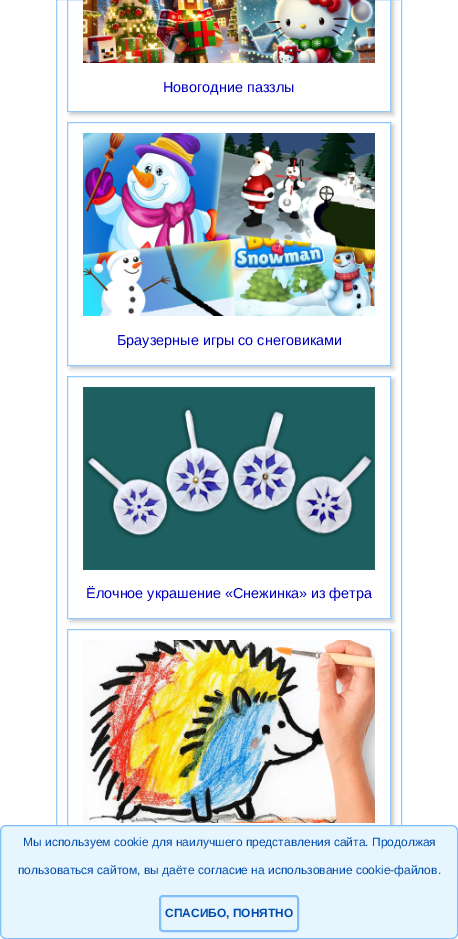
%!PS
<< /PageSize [458 939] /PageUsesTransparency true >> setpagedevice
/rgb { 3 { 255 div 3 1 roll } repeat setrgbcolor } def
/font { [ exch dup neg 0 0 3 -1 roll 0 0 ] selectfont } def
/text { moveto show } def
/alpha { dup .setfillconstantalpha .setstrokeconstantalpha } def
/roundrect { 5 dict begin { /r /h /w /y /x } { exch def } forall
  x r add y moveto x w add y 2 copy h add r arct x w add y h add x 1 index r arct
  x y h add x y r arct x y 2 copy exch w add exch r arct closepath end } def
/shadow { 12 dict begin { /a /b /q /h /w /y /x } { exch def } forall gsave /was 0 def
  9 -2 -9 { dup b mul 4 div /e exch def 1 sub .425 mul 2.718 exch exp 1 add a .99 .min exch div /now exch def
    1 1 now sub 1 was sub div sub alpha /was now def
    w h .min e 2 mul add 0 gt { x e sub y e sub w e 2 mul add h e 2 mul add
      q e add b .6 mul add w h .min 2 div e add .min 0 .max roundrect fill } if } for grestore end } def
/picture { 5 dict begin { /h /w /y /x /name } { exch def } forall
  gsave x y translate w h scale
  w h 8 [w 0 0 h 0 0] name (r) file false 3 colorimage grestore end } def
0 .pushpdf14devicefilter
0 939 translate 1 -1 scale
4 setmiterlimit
255 255 255 rgb
0 0 458 939 rectfill
149 201 252 rgb
56.5 -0.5 345 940 rectstroke
gsave
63 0 moveto 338 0 rlineto 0 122 rlineto -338 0 rlineto closepath 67 -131 moveto 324 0 rlineto 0 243 rlineto -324 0 rlineto closepath eoclip newpath
204 204 204 rgb
70 -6 324 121 0 2 1 shadow
grestore
67.5 -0.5 323 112 rectstroke
(img_01.rgb) 83 0 292 63 picture
gsave
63 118 moveto 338 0 rlineto 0 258 rlineto -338 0 rlineto closepath 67 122 moveto 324 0 rlineto 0 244 rlineto -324 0 rlineto closepath eoclip newpath
204 204 204 rgb
70 125 324 244 0 2 1 shadow
grestore
67.5 122.5 323 243 rectstroke
(img_02.rgb) 83 133 292 183 picture
gsave
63 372 moveto 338 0 rlineto 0 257 rlineto -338 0 rlineto closepath 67 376 moveto 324 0 rlineto 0 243 rlineto -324 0 rlineto closepath eoclip newpath
204 204 204 rgb
70 379 324 243 0 2 1 shadow
grestore
67.5 376.5 323 242 rectstroke
(img_03.rgb) 83 387 292 183 picture
gsave
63 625 moveto 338 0 rlineto 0 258 rlineto -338 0 rlineto closepath 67 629 moveto 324 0 rlineto 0 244 rlineto -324 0 rlineto closepath eoclip newpath
204 204 204 rgb
70 632 324 244 0 2 1 shadow
grestore
67.5 629.5 323 243 rectstroke
(img_04.rgb) 83 640 292 183 picture
231 246 254 rgb
0.5 825.5 457 113 5.5 roundrect gsave fill grestore
130 190 251 rgb
stroke
2 setlinewidth
160 896 138 35 3 roundrect stroke
/LiberationSans-Regular 14.4 font
0 0 192 rgb
(Новогодние паззлы) 163 92 text
(Браузерные игры со снеговиками) 117 345 text
(Ёлочное украшение «Снежинка» из фетра) 86 598 text
/LiberationSans-Regular 12 font
0 77 173 rgb
(Мы используем cookie для наилучшего представления сайта. Продолжая) 23 846 text
(пользоваться сайтом, вы даёте согласие на использование cookie-файлов.) 18 874 text
/LiberationSans-Bold 12 font
(СПАСИБО, ПОНЯТНО) 165 917 text
.poppdf14devicefilter showpage
